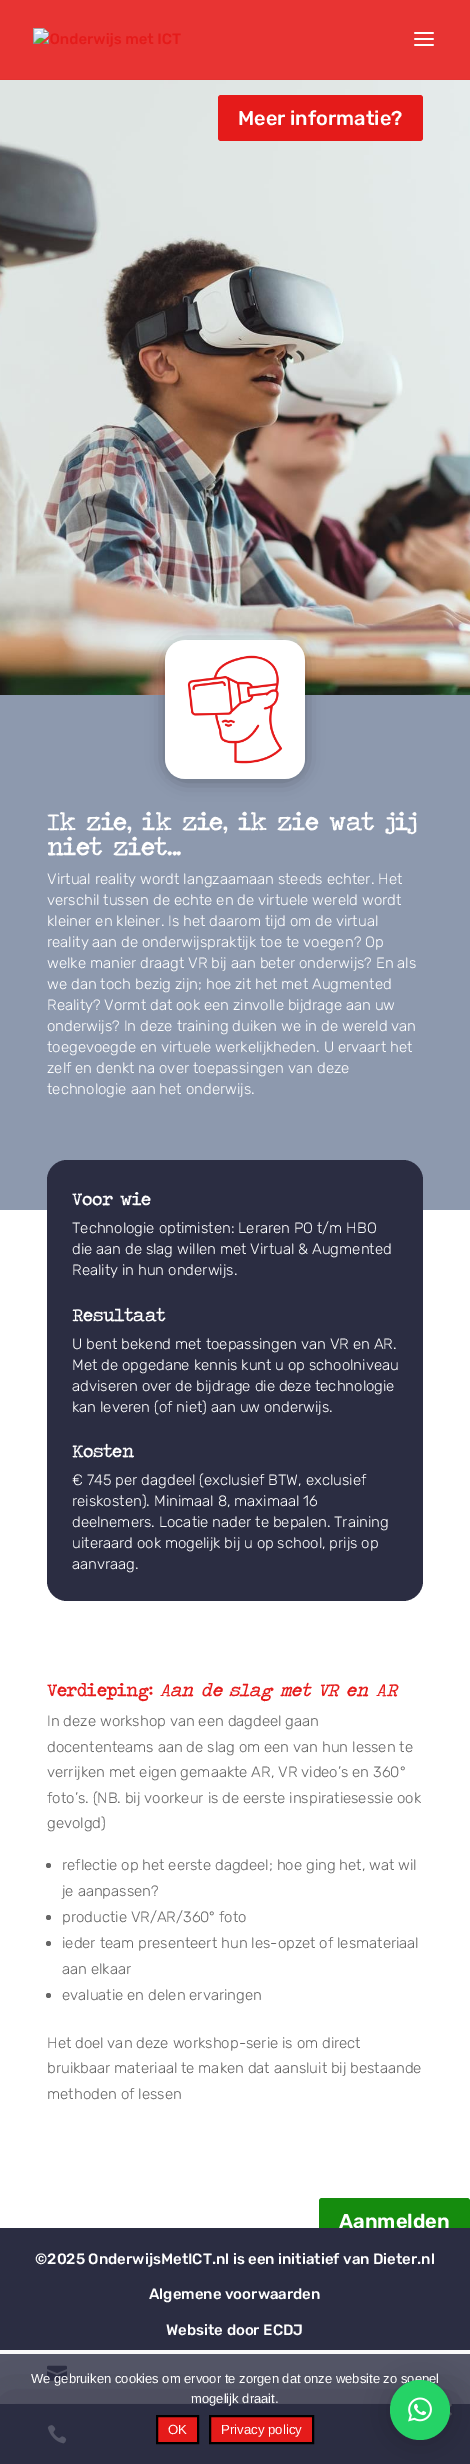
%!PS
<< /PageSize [470 2464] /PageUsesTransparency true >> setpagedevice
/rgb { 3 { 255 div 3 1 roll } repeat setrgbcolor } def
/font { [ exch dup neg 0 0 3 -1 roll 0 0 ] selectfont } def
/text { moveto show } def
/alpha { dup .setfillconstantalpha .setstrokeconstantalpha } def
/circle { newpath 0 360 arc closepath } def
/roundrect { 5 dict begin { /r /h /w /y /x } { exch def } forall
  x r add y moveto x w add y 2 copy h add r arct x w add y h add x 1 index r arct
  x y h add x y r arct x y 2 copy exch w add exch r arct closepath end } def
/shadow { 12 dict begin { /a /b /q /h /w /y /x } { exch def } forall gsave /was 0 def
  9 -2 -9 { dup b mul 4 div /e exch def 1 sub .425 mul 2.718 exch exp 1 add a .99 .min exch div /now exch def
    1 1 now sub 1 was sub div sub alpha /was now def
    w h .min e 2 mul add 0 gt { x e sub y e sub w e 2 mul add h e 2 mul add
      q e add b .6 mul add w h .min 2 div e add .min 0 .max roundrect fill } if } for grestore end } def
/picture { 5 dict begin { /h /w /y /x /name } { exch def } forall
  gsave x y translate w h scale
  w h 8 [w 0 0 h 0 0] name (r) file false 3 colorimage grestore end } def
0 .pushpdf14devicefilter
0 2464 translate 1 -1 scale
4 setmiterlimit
255 255 255 rgb
0 0 470 2464 rectfill
(img_03.rgb) 0 79 470 616 picture
0.89 alpha
229 27 26 rgb
0 0 470 80 rectfill
1 alpha
(img_01.rgb) 33 28 148 19 picture
(img_02.rgb) 414 32 20 14 picture
218 95 205 46 3 roundrect fill
141 153 174 rgb
0 695 470 515 rectfill
0 0 0 rgb
165 642 140 139 20 9 0.3 shadow
(img_04.rgb) 165 640 140 139 picture
43 45 66 rgb
67 1160 moveto 336 0 rlineto 11 0 20 9 20 20 rcurveto 0 128 rlineto -376 0 rlineto 0 -128 rlineto 0 -11 9 -20 20 -20 rcurveto closepath fill
47 1308 376 134 rectfill
47 1442 moveto 376 0 rlineto 0 139 rlineto 0 11 -9 20 -20 20 rcurveto -336 0 rlineto -11 0 -20 -9 -20 -20 rcurveto closepath fill
102 102 102 rgb
48.5 1865.5 2.5 circle fill
48.5 1917.5 2.5 circle fill
48.5 1943.5 2.5 circle fill
48.5 1995.5 2.5 circle fill
21 140 14 rgb
319 2198 151 46 3 roundrect fill
(img_06.rgb) 47 2365 20 16 picture
0 0 0 rgb
1 2396 458 48 0 29 0.3 shadow
43 45 66 rgb
0 2404 470 60 rectfill
(img_05.rgb) 47 2425 20 19 picture
0.8 alpha
0 2354 470 90 rectfill
1 alpha
86 87 97 rgb
450.5 2403.5 moveto 1.5 1.5 rlineto -10.5 10.5 rlineto -1.5 -1.5 rlineto closepath fill
440 2405 moveto 1.5 -1.5 rlineto 10.5 10.5 rlineto -1.5 1.5 rlineto closepath fill
0 0 0 rgb
390 2381 60 60 30 3 0.06 shadow
229 27 26 rgb
157 2416 moveto 41 0 rlineto 0 27 rlineto -41 0 rlineto closepath gsave fill grestore
0 0 0 rgb
2 setlinewidth
stroke
229 27 26 rgb
210 2416 moveto 103 0 rlineto 0 27 rlineto -103 0 rlineto closepath gsave fill grestore
0 0 0 rgb
stroke
/Rubik-Medium 20 font
255 255 255 rgb
(Meer informatie?) 238 125 text
/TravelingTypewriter-Bold 25 font
(Ik zie, ik zie, ik zie wat jij) 47 830 text
(niet ziet...) 47 855 text
/Rubik-Light 15 font
(Virtual reality wordt langzaamaan steeds echter. Het) 47 884 text
(verschil tussen de echte en de virtuele wereld wordt) 47 905 text
(kleiner en kleiner. Is het daarom tijd om de virtual) 47 926 text
(reality aan de onderwijspraktijk toe te voegen? Op) 47 947 text
(welke manier draagt VR bij aan beter onderwijs? En als) 47 968 text
(we dan toch bezig zijn; hoe zit het met Augmented) 47 989 text
(Reality? Vormt dat ook een zinvolle bijdrage aan uw) 47 1010 text
(onderwijs? In deze training duiken we in de wereld van) 47 1031 text
(toegevoegde en virtuele werkelijkheden. U ervaart het) 47 1052 text
(zelf en denkt na over toepassingen van deze) 47 1073 text
(technologie aan het onderwijs.) 47 1094 text
/TravelingTypewriter-Bold 18 font
(Voor wie) 72 1205 text
/Rubik-Light 15 font
(Technologie optimisten: Leraren PO t/m HBO) 72 1233 text
(die aan de slag willen met Virtual & Augmented) 72 1254 text
(Reality in hun onderwijs.) 72 1275 text
/TravelingTypewriter-Bold 18 font
(Resultaat) 72 1321 text
/Rubik-Light 15 font
(U bent bekend met toepassingen van VR en AR.) 72 1349 text
(Met de opgedane kennis kunt u op schoolniveau) 72 1370 text
(adviseren over de bijdrage die deze technologie) 72 1391 text
(kan leveren \(of niet\) aan uw onderwijs.) 72 1412 text
/TravelingTypewriter-Bold 18 font
(Kosten) 72 1457 text
/Rubik-Light 15 font
(€ 745 per dagdeel \(exclusief BTW, exclusief) 72 1485 text
(reiskosten\). Minimaal 8, maximaal 16) 72 1506 text
(deelnemers. Locatie nader te bepalen. Training) 72 1527 text
(uiteraard ook mogelijk bij u op school, prijs op) 72 1548 text
(aanvraag.) 72 1569 text
/TravelingTypewriter-Bold 18 font
229 27 26 rgb
(Verdieping:) 47 1696 text
/TravelingTypewriter-BoldItalic 18 font
(Aan de slag met VR en AR) 160 1696 text
/Rubik-Light 15 font
102 102 102 rgb
(In deze workshop van een dagdeel gaan) 47 1726 text
(docententeams aan de slag om een van hun lessen te) 47 1752 text
(verrijken met eigen gemaakte AR, VR video’s en 360°) 47 1777 text
(foto’s. \(NB. bij voorkeur is de eerste inspiratiesessie ook) 47 1803 text
(gevolgd\)) 47 1828 text
(reflectie op het eerste dagdeel; hoe ging het, wat wil) 62 1870 text
(je aanpassen?) 62 1896 text
(productie VR/AR/360° foto) 62 1922 text
(ieder team presenteert hun les-opzet of lesmateriaal) 62 1948 text
(aan elkaar) 62 1974 text
(evaluatie en delen ervaringen) 62 2000 text
(Het doel van deze workshop-serie is om direct) 47 2048 text
(bruikbaar materiaal te maken dat aansluit bij bestaande) 47 2073 text
(methoden of lessen) 47 2099 text
/Rubik-SemiBold 20 font
255 255 255 rgb
(Aanmelden) 339 2228 text
43 45 66 rgb
0 2228 470 122 rectfill
/Rubik-Medium 15 font
255 255 255 rgb
(©2025 OnderwijsMetICT.nl is een initiatief van Dieter.nl) 35 2264 text
(Algemene voorwaarden) 149 2299 text
(Website door ECDJ) 166 2335 text
0 0 0 rgb
390 2382 60 60 30 16 0.16 shadow
/LiberationSans-Regular 13 font
255 255 255 rgb
(We gebruiken cookies om ervoor te zorgen dat onze website zo soepel) 31 2383 text
37 211 102 rgb
420 2410 30 circle fill
(img_07.rgb) 408 2397 24 25 picture
255 255 255 rgb
(mogelijk draait.) 191 2403 text
/LiberationSans-Regular 13.25 font
(OK) 168 2434 text
(Privacy policy) 221 2434 text
.poppdf14devicefilter showpage
